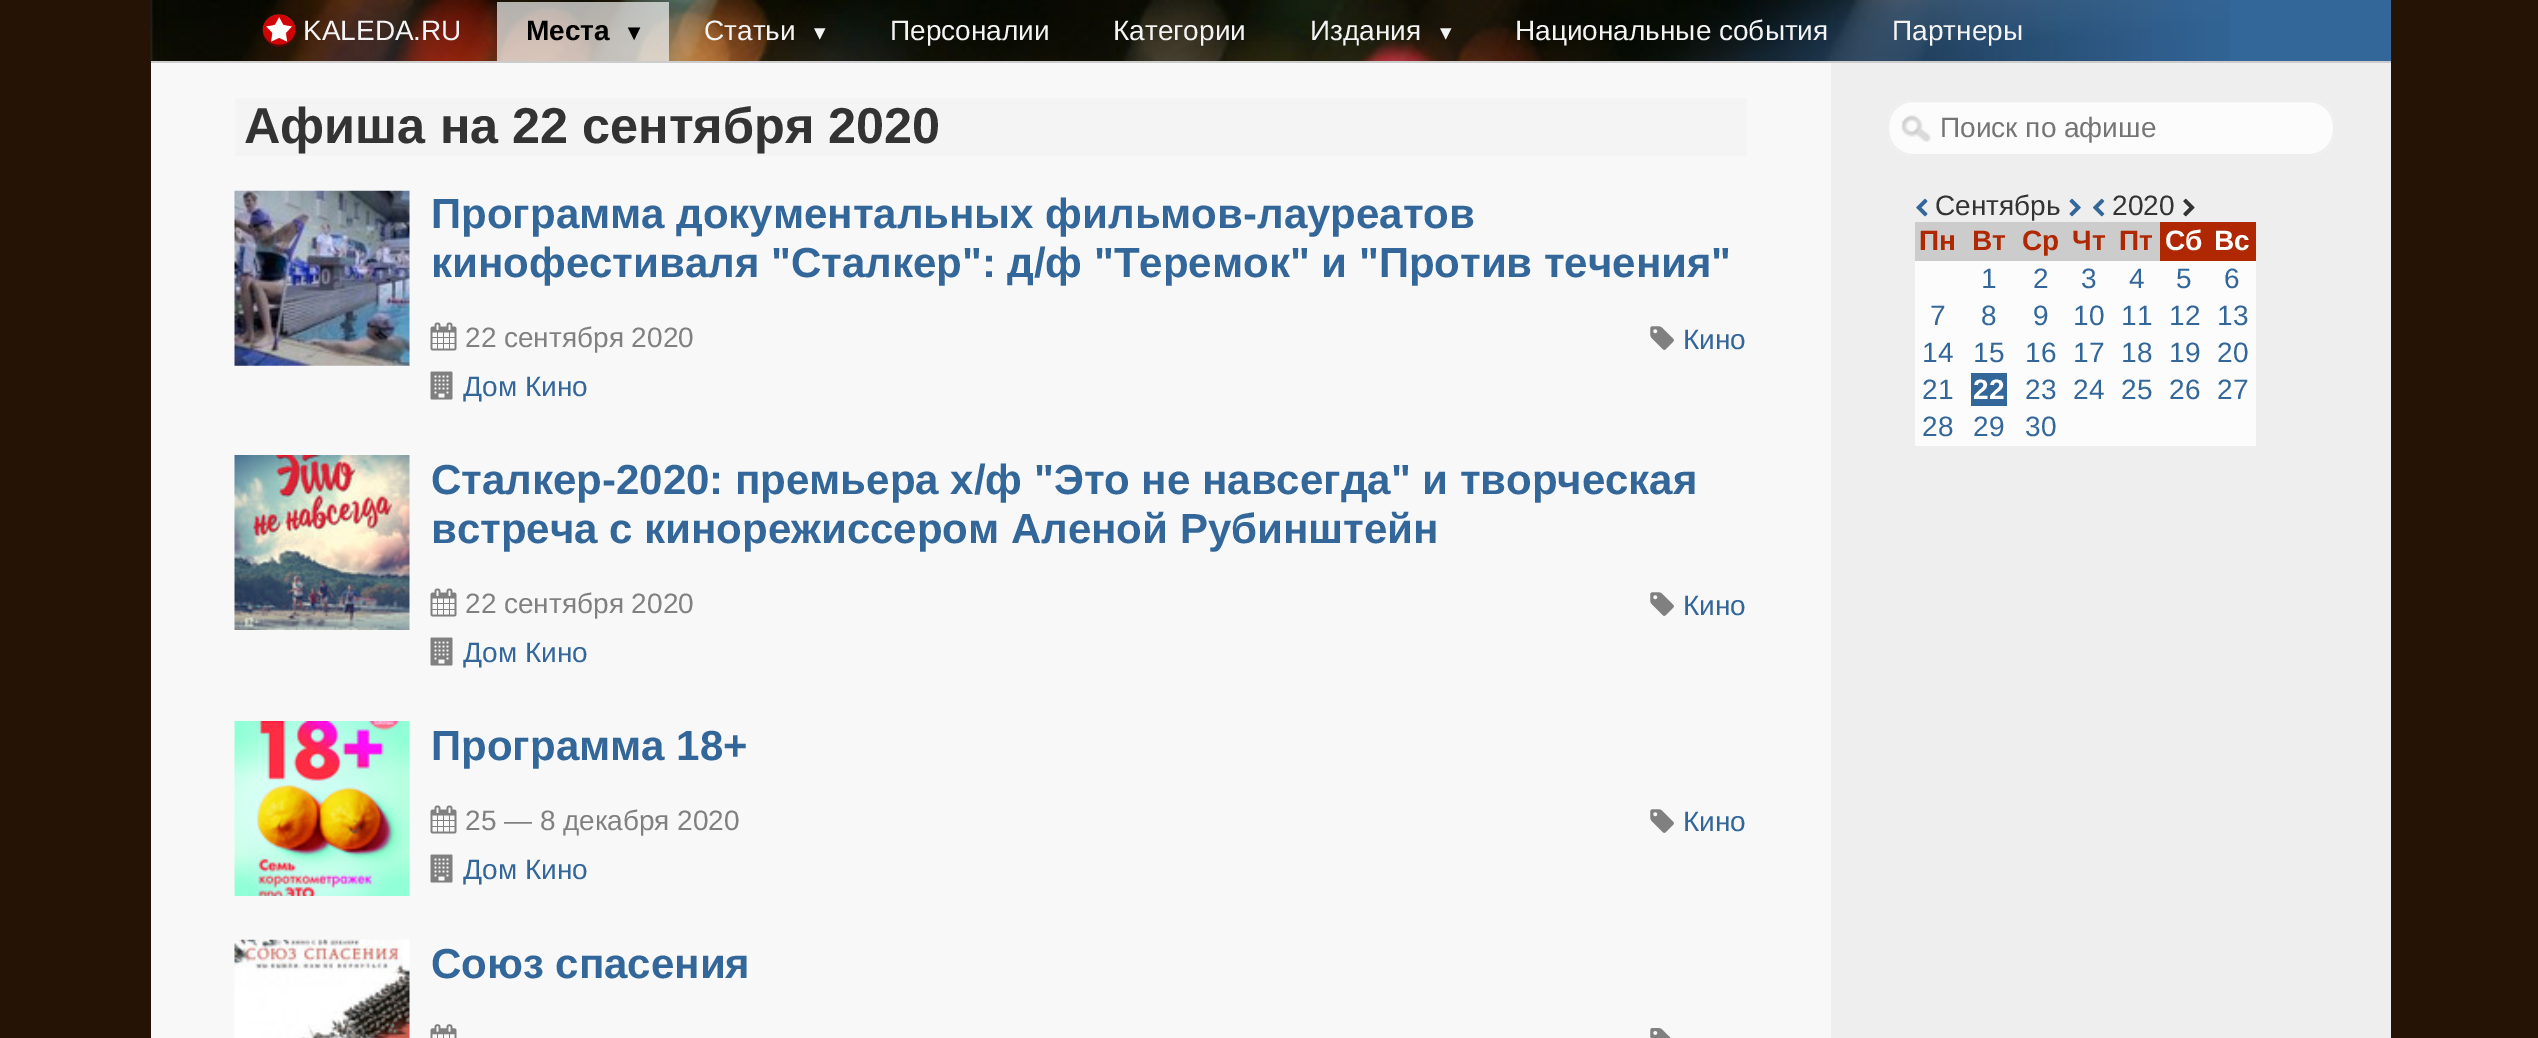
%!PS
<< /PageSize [2538 1038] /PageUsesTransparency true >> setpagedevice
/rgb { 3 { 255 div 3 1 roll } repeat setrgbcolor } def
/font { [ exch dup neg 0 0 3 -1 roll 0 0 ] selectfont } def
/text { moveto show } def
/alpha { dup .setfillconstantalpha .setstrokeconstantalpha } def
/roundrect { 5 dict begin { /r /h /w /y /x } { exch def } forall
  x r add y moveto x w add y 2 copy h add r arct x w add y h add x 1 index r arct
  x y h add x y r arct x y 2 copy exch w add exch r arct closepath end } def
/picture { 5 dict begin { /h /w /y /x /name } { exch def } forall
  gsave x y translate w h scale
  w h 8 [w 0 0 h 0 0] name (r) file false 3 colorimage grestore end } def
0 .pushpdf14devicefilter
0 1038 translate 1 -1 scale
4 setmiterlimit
37 20 5 rgb
0 0 2538 1038 rectfill
51 102 153 rgb
2230 0 161 61 rectfill
(img_01.rgb) 150 0 2080 63 picture
204 204 204 rgb
151 61 2240 2 rectfill
(img_02.rgb) 262 14 34 33 picture
0.7 alpha
244 244 244 rgb
497 2 172 59 rectfill
1 alpha
248 248 248 rgb
151 63 1680 975 rectfill
244 244 244 rgb
235 98 1512 58 rectfill
(img_03.rgb) 234 190 176 176 picture
(img_04.rgb) 430 322 27 29 picture
(img_05.rgb) 430 371 23 29 picture
(img_06.rgb) 1650 326 24 24 picture
(img_07.rgb) 234 455 176 175 picture
(img_04.rgb) 430 588 27 29 picture
(img_05.rgb) 430 637 23 29 picture
(img_06.rgb) 1650 592 24 24 picture
(img_08.rgb) 234 721 176 175 picture
(img_04.rgb) 430 805 27 29 picture
(img_05.rgb) 430 854 23 29 picture
(img_06.rgb) 1650 809 24 24 picture
(img_09.rgb) 234 939 176 99 picture
(img_10.rgb) 430 1024 27 14 picture
(img_11.rgb) 1650 1028 21 10 picture
238 238 238 rgb
1831 63 560 975 rectfill
252 252 252 rgb
1887 100 448 56 26 roundrect fill
(img_12.rgb) 1901 115 30 27 picture
238 238 238 rgb
2 setlinewidth
1888 101 446 54 25 roundrect stroke
(img_13.rgb) 1916 198 12 19 picture
(img_14.rgb) 2069 198 12 19 picture
(img_15.rgb) 2093 198 12 19 picture
(img_16.rgb) 2183 198 12 19 picture
252 252 252 rgb
1915 261 341 185 rectfill
204 204 204 rgb
1915 222 245 39 rectfill
176 40 2 rgb
2160 222 96 39 rectfill
51 102 153 rgb
1971 373 36 33 rectfill
/LiberationSans-Regular 28 font
244 244 244 rgb
(KALEDA.RU) 303 40 text
/LiberationSans-Bold 28 font
0 0 0 rgb
(Места) 526 40 text
/DejaVuSans-Bold 23 font
(▾) 628 40 text
/LiberationSans-Regular 28 font
244 244 244 rgb
(Статьи) 704 40 text
/DejaVuSans-Regular 23 font
(▾) 814 40 text
/LiberationSans-Regular 28 font
(Персоналии) 890 40 text
(Категории) 1113 40 text
(Издания) 1310 40 text
/DejaVuSans-Regular 23 font
(▾) 1440 40 text
/LiberationSans-Regular 28 font
(Национальные события) 1515 40 text
(Партнеры) 1892 40 text
/LiberationSans-Bold 50.4 font
51 51 51 rgb
(Афиша на 22 сентября 2020) 244 143 text
/LiberationSans-Bold 42 font
51 102 153 rgb
(Программа документальных фильмов-лауреатов) 431 228 text
(кинофестиваля "Сталкер": д/ф "Теремок" и "Против течения") 431 277 text
/LiberationSans-Regular 28 font
128 128 128 rgb
(22 сентября 2020) 465 347 text
51 102 153 rgb
(Дом Кино) 463 396 text
(Кино) 1683 349 text
/LiberationSans-Bold 42 font
(Сталкер-2020: премьера х/ф "Это не навсегда" и творческая) 431 494 text
(встреча с кинорежиссером Аленой Рубинштейн) 431 543 text
/LiberationSans-Regular 28 font
128 128 128 rgb
(22 сентября 2020) 465 613 text
51 102 153 rgb
(Дом Кино) 463 662 text
(Кино) 1683 615 text
/LiberationSans-Bold 42 font
(Программа 18+) 431 760 text
/LiberationSans-Regular 28 font
128 128 128 rgb
(25 — 8 декабря 2020) 465 830 text
51 102 153 rgb
(Дом Кино) 463 879 text
(Кино) 1683 831 text
/LiberationSans-Bold 42 font
(Союз спасения) 431 978 text
/LiberationSans-Regular 28 font
117 117 117 rgb
(Поиск по афише) 1940 137 text
51 51 51 rgb
(Сентябрь) 1935 215 text
(2020) 2112 215 text
/LiberationSans-Bold 28 font
176 40 2 rgb
(Пн) 1919 250 text
(Вт) 1972 250 text
(Ср) 2022 250 text
(Чт) 2072 250 text
(Пт) 2119 250 text
255 255 255 rgb
(Сб) 2165 250 text
(Вс) 2214 250 text
/LiberationSans-Regular 28 font
51 102 153 rgb
(1) 1981 288 text
(2) 2033 288 text
(3) 2081 288 text
(4) 2129 288 text
(5) 2176 288 text
(6) 2224 288 text
(7) 1930 325 text
(8) 1981 325 text
(9) 2033 325 text
(10) 2073 325 text
(11) 2121 325 text
(12) 2169 325 text
(13) 2217 325 text
(14) 1922 362 text
(15) 1973 362 text
(16) 2025 362 text
(17) 2073 362 text
(18) 2121 362 text
(19) 2169 362 text
(20) 2217 362 text
(21) 1922 399 text
/LiberationSans-Bold 28 font
255 255 255 rgb
(22) 1973 399 text
/LiberationSans-Regular 28 font
51 102 153 rgb
(23) 2025 399 text
(24) 2073 399 text
(25) 2121 399 text
(26) 2169 399 text
(27) 2217 399 text
(28) 1922 436 text
(29) 1973 436 text
(30) 2025 436 text
.poppdf14devicefilter showpage
